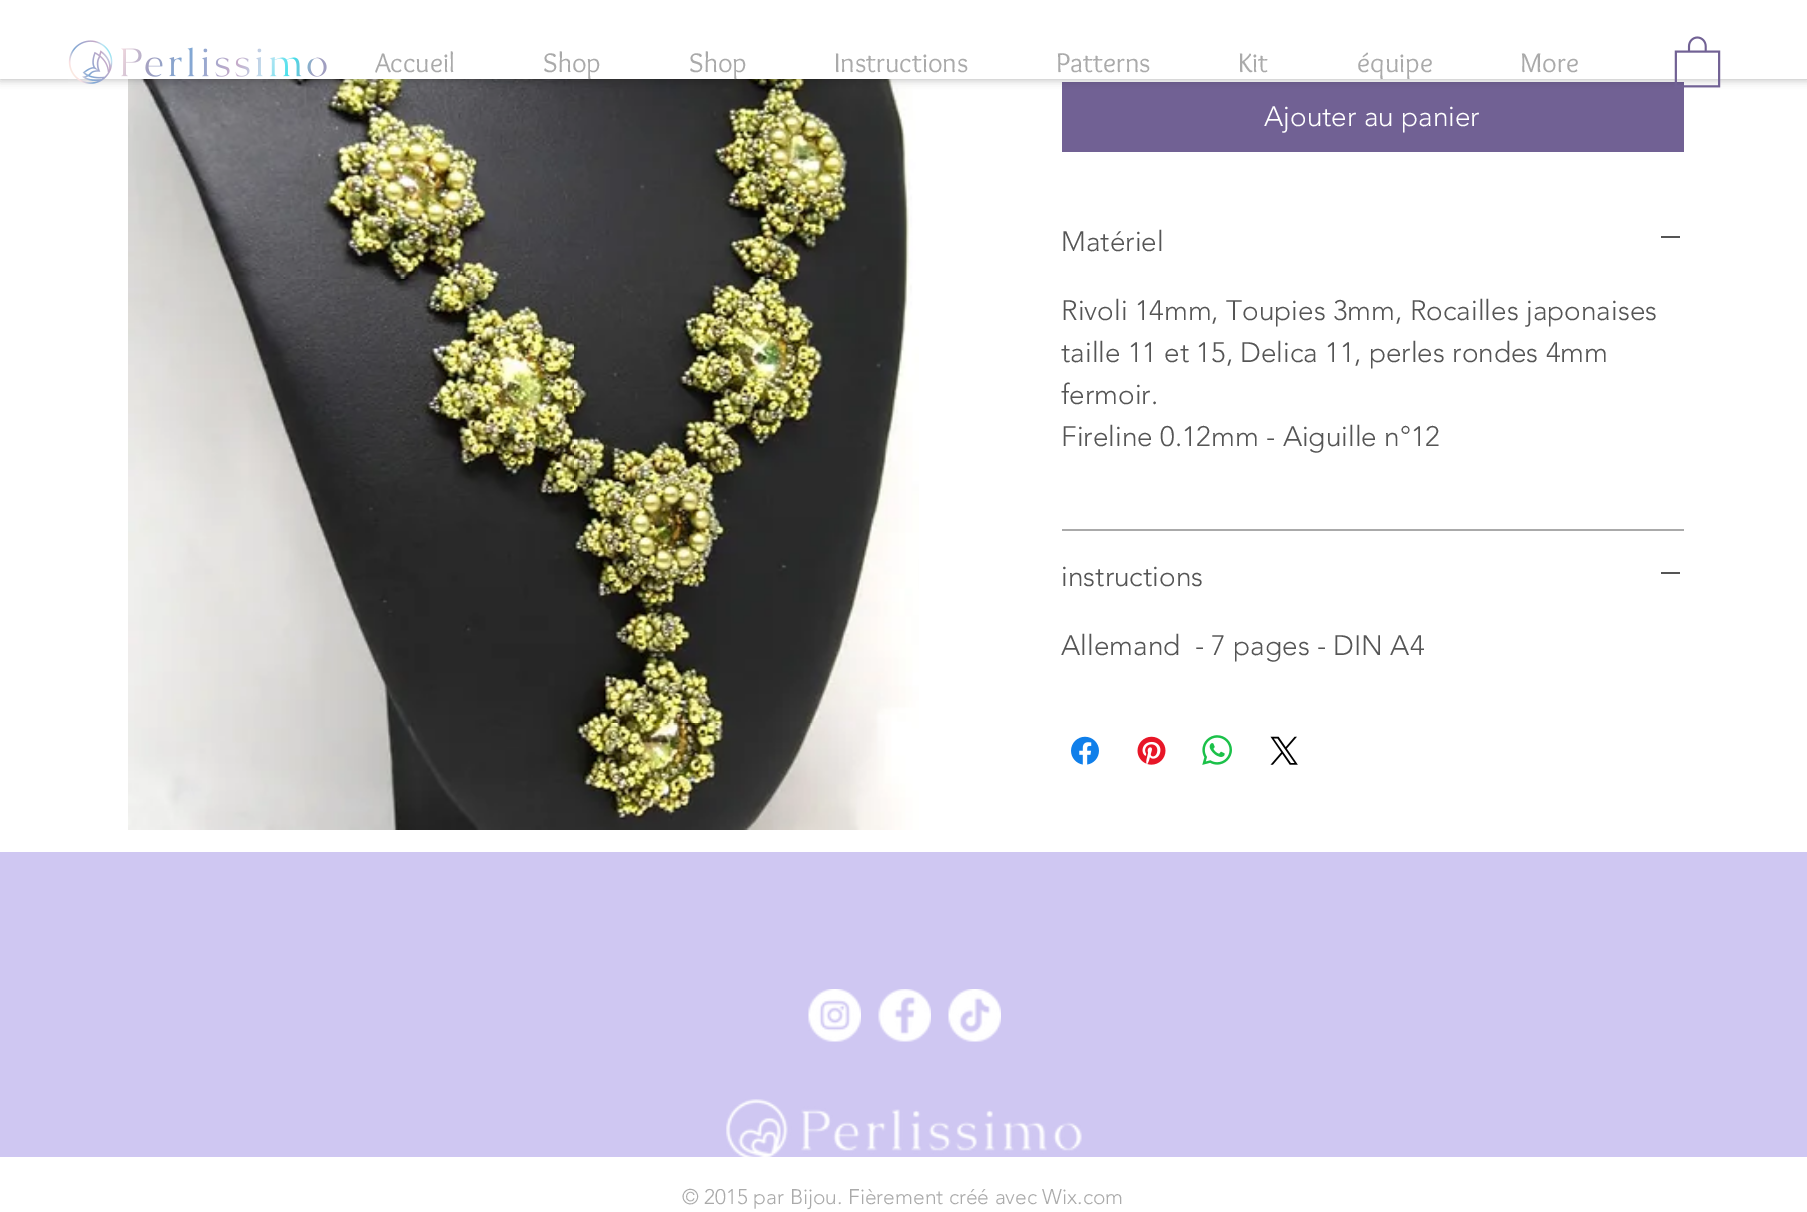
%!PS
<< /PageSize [1807 1212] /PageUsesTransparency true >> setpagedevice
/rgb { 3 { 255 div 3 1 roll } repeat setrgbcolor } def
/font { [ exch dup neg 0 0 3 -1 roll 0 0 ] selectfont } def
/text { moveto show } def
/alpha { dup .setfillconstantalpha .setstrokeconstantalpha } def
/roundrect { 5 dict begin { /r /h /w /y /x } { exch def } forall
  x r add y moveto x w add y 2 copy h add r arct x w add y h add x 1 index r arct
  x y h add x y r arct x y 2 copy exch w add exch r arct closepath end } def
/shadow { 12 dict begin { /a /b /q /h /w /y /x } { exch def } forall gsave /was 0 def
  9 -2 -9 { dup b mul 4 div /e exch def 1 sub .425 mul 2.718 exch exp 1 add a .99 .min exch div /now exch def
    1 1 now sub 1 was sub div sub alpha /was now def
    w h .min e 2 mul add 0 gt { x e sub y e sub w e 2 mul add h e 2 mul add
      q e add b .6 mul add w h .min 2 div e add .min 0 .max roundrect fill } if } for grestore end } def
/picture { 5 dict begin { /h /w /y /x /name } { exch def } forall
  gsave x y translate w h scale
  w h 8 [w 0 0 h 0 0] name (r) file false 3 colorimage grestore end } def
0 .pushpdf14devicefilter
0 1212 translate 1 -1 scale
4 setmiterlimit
255 255 255 rgb
0 0 1807 1212 rectfill
(img_03.rgb) 128 79 791 751 picture
113 97 148 rgb
1062 82 622 70 rectfill
0 0 0 rgb
0 0 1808 79 0 4.5 0.31 shadow
255 255 255 rgb
0 0 1807 79 rectfill
(img_01.rgb) 68 40 259 44 picture
(img_02.rgb) 1674 36 47 52 picture
170 170 170 rgb
1062 529 622 2 rectfill
85 85 85 rgb
1661 236 19 2 rectfill
1661 572 19 2 rectfill
(img_04.rgb) 1071 736 28 29 picture
(img_05.rgb) 1137 736 29 29 picture
(img_06.rgb) 1202 735 30 30 picture
(img_07.rgb) 1270 736 28 29 picture
207 199 242 rgb
0 852 1807 305 rectfill
(img_08.rgb) 808 989 53 53 picture
(img_09.rgb) 878 989 53 53 picture
(img_10.rgb) 948 989 53 53 picture
(img_11.rgb) 726 1099 356 58 picture
/Overlock-Regular 28 font
170 170 170 rgb
(Accueil) 375 72 text
(Shop) 543 72 text
(Shop) 689 72 text
(Instructions) 834 72 text
(Patterns) 1056 72 text
(Kit) 1238 72 text
(équipe) 1357 72 text
(More) 1520 72 text
/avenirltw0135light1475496-Light 28 font
255 255 255 rgb
(Ajouter au panier) 1264 126 text
85 85 85 rgb
(Matériel) 1061 251 text
(Rivoli 14mm, Toupies 3mm, Rocailles japonaises) 1061 320 text
(taille 11 et 15, Delica 11, perles rondes 4mm) 1061 362 text
(fermoir.) 1061 404 text
(Fireline 0.12mm - Aiguille n°12) 1061 446 text
(instructions) 1061 586 text
(Allemand  - 7 pages - DIN A4) 1061 655 text
/avenirltw0135light1475496-Light 21 font
170 170 170 rgb
(© 2015 par Bijou. Fièrement créé avec Wix.com) 682 1204 text
.poppdf14devicefilter showpage
